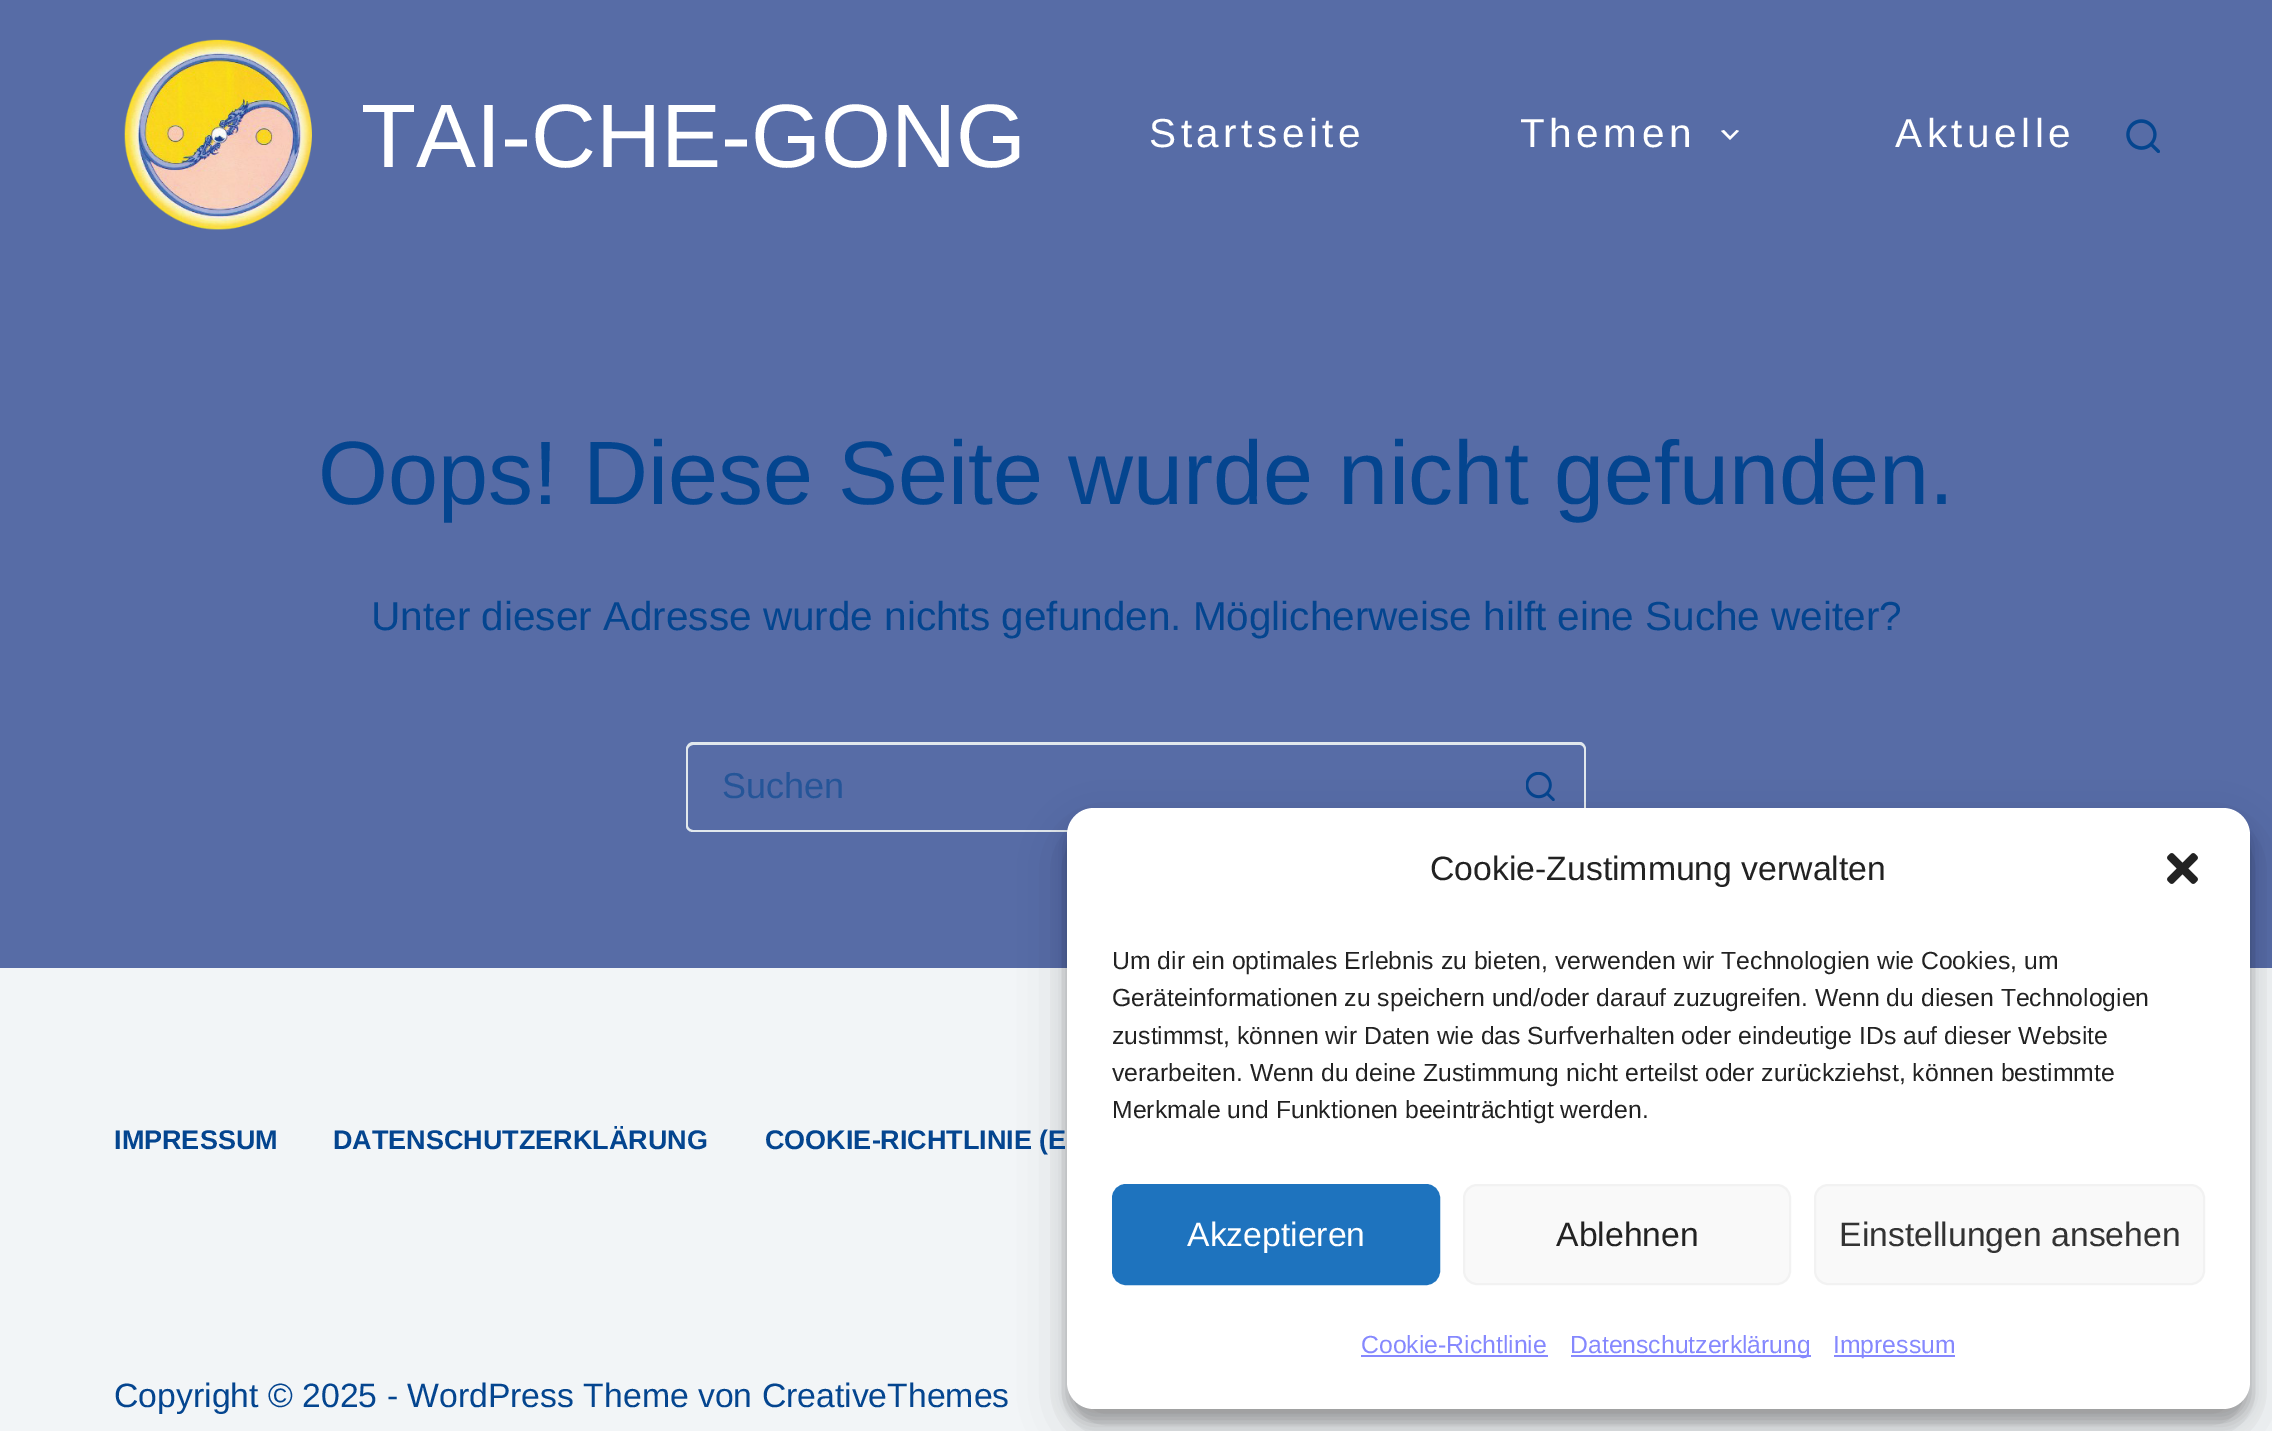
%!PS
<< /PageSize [2272 1431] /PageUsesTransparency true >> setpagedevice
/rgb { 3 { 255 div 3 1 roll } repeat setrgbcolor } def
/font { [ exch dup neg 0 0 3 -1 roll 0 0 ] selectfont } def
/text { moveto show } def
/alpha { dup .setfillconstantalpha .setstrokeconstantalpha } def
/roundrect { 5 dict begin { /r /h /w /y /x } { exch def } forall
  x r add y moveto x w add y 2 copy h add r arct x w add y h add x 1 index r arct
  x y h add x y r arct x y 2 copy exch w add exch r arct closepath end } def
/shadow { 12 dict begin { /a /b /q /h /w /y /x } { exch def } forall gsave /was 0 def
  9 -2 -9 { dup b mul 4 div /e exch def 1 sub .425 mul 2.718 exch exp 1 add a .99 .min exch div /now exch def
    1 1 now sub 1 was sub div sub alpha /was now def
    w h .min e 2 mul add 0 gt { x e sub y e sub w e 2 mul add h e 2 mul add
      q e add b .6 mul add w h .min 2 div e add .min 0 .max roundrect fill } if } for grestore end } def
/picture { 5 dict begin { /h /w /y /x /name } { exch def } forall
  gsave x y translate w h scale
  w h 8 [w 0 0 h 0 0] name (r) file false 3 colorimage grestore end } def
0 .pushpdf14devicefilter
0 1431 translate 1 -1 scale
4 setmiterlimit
87 108 166 rgb
0 0 2272 1431 rectfill
(img_01.rgb) 124 39 188 191 picture
255 255 255 rgb
1724 130 moveto 6 6.5 rlineto 6.5 -6.5 rlineto 2.5 1 rlineto -9 9 rlineto -9 -9 rlineto closepath fill
(img_02.rgb) 2126 119 34 34 picture
225 232 237 rgb
693 742 moveto 803 0 rlineto 0 90 rlineto -803 0 rlineto -4 0 -7 -3 -7 -6 rcurveto 0 -77 rlineto 0 -3 3 -7 7 -7 rcurveto closepath 693 745 moveto 803 0 rlineto 0 85 rlineto -803 0 rlineto -2 0 -5 -2 -5 -4 rcurveto 0 -77 rlineto 0 -2 3 -4 5 -4 rcurveto closepath eofill
1496 742 moveto 84 0 rlineto 3 0 6 4 6 7 rcurveto 0 77 rlineto 0 3 -3 6 -6 6 rcurveto -84 0 rlineto closepath 1496 745 moveto 84 0 rlineto 2 0 4 2 4 4 rcurveto 0 77 rlineto 0 2 -2 4 -4 4 rcurveto -84 0 rlineto closepath eofill
(img_03.rgb) 1526 772 29 29 picture
242 245 247 rgb
0 968 2272 463 rectfill
0 0 0 rgb
1067 821 1183 601 27 7 0.23 shadow
1067 830 1183 601 27 22.5 0.19 shadow
255 255 255 rgb
1067 808 1183 601 27 roundrect fill
(img_04.rgb) 2167 853 31 31 picture
30 115 190 rgb
1113 1185 326 99 13 roundrect gsave fill grestore
2 setlinewidth
stroke
249 249 249 rgb
1464 1185 326 99 13 roundrect gsave fill grestore
242 242 242 rgb
stroke
249 249 249 rgb
1815 1185 389 99 13 roundrect gsave fill grestore
242 242 242 rgb
stroke
133 136 254 rgb
1361 1355 187 2 rectfill
1571 1355 240 2 rectfill
1834 1355 121 2 rectfill
/LiberationSans-Regular 90 font
255 255 255 rgb
(TAI-CHE-GONG) 361 167 text
/LiberationSans-Regular 40.5 font
1149 147 moveto 4.5 0 (Startseite) ashow
1520 147 moveto 4.5 0 (Themen) ashow
1895 147 moveto 4.5 0 (Aktuelle) ashow
/LiberationSans-Regular 90 font
4 69 143 rgb
(Oops! Diese Seite wurde nicht gefunden.) 318 504 text
/LiberationSans-Regular 40.5 font
(Unter dieser Adresse wurde nichts gefunden. Möglicherweise hilft eine Suche weiter?) 371 630 text
/LiberationSans-Regular 36 font
37 85 152 rgb
(Suchen) 722 798 text
/LiberationSans-Bold 27 font
4 69 143 rgb
(IMPRESSUM) 114 1149 text
(DATENSCHUTZERKLÄRUNG) 333 1149 text
(COOKIE-RICHTLINIE \(E) 765 1149 text
/LiberationSans-Regular 33.75 font
(Copyright © 2025 - WordPress Theme von CreativeThemes) 114 1407 text
34 34 34 rgb
(Cookie-Zustimmung verwalten) 1430 880 text
/LiberationSans-Regular 24.75 font
(Um dir ein optimales Erlebnis zu bieten, verwenden wir Technologien wie Cookies, um) 1112 969 text
(Geräteinformationen zu speichern und/oder darauf zuzugreifen. Wenn du diesen Technologien) 1112 1006 text
(zustimmst, können wir Daten wie das Surfverhalten oder eindeutige IDs auf dieser Website) 1112 1044 text
(verarbeiten. Wenn du deine Zustimmung nicht erteilst oder zurückziehst, können bestimmte) 1112 1081 text
(Merkmale und Funktionen beeinträchtigt werden.) 1112 1118 text
/LiberationSans-Regular 33.75 font
255 255 255 rgb
(Akzeptieren) 1187 1246 text
34 34 34 rgb
(Ablehnen) 1556 1246 text
51 51 51 rgb
(Einstellungen ansehen) 1839 1246 text
/LiberationSans-Regular 24.75 font
133 136 254 rgb
(Cookie-Richtlinie) 1361 1353 text
(Datenschutzerklärung) 1570 1353 text
(Impressum) 1833 1353 text
.poppdf14devicefilter showpage
